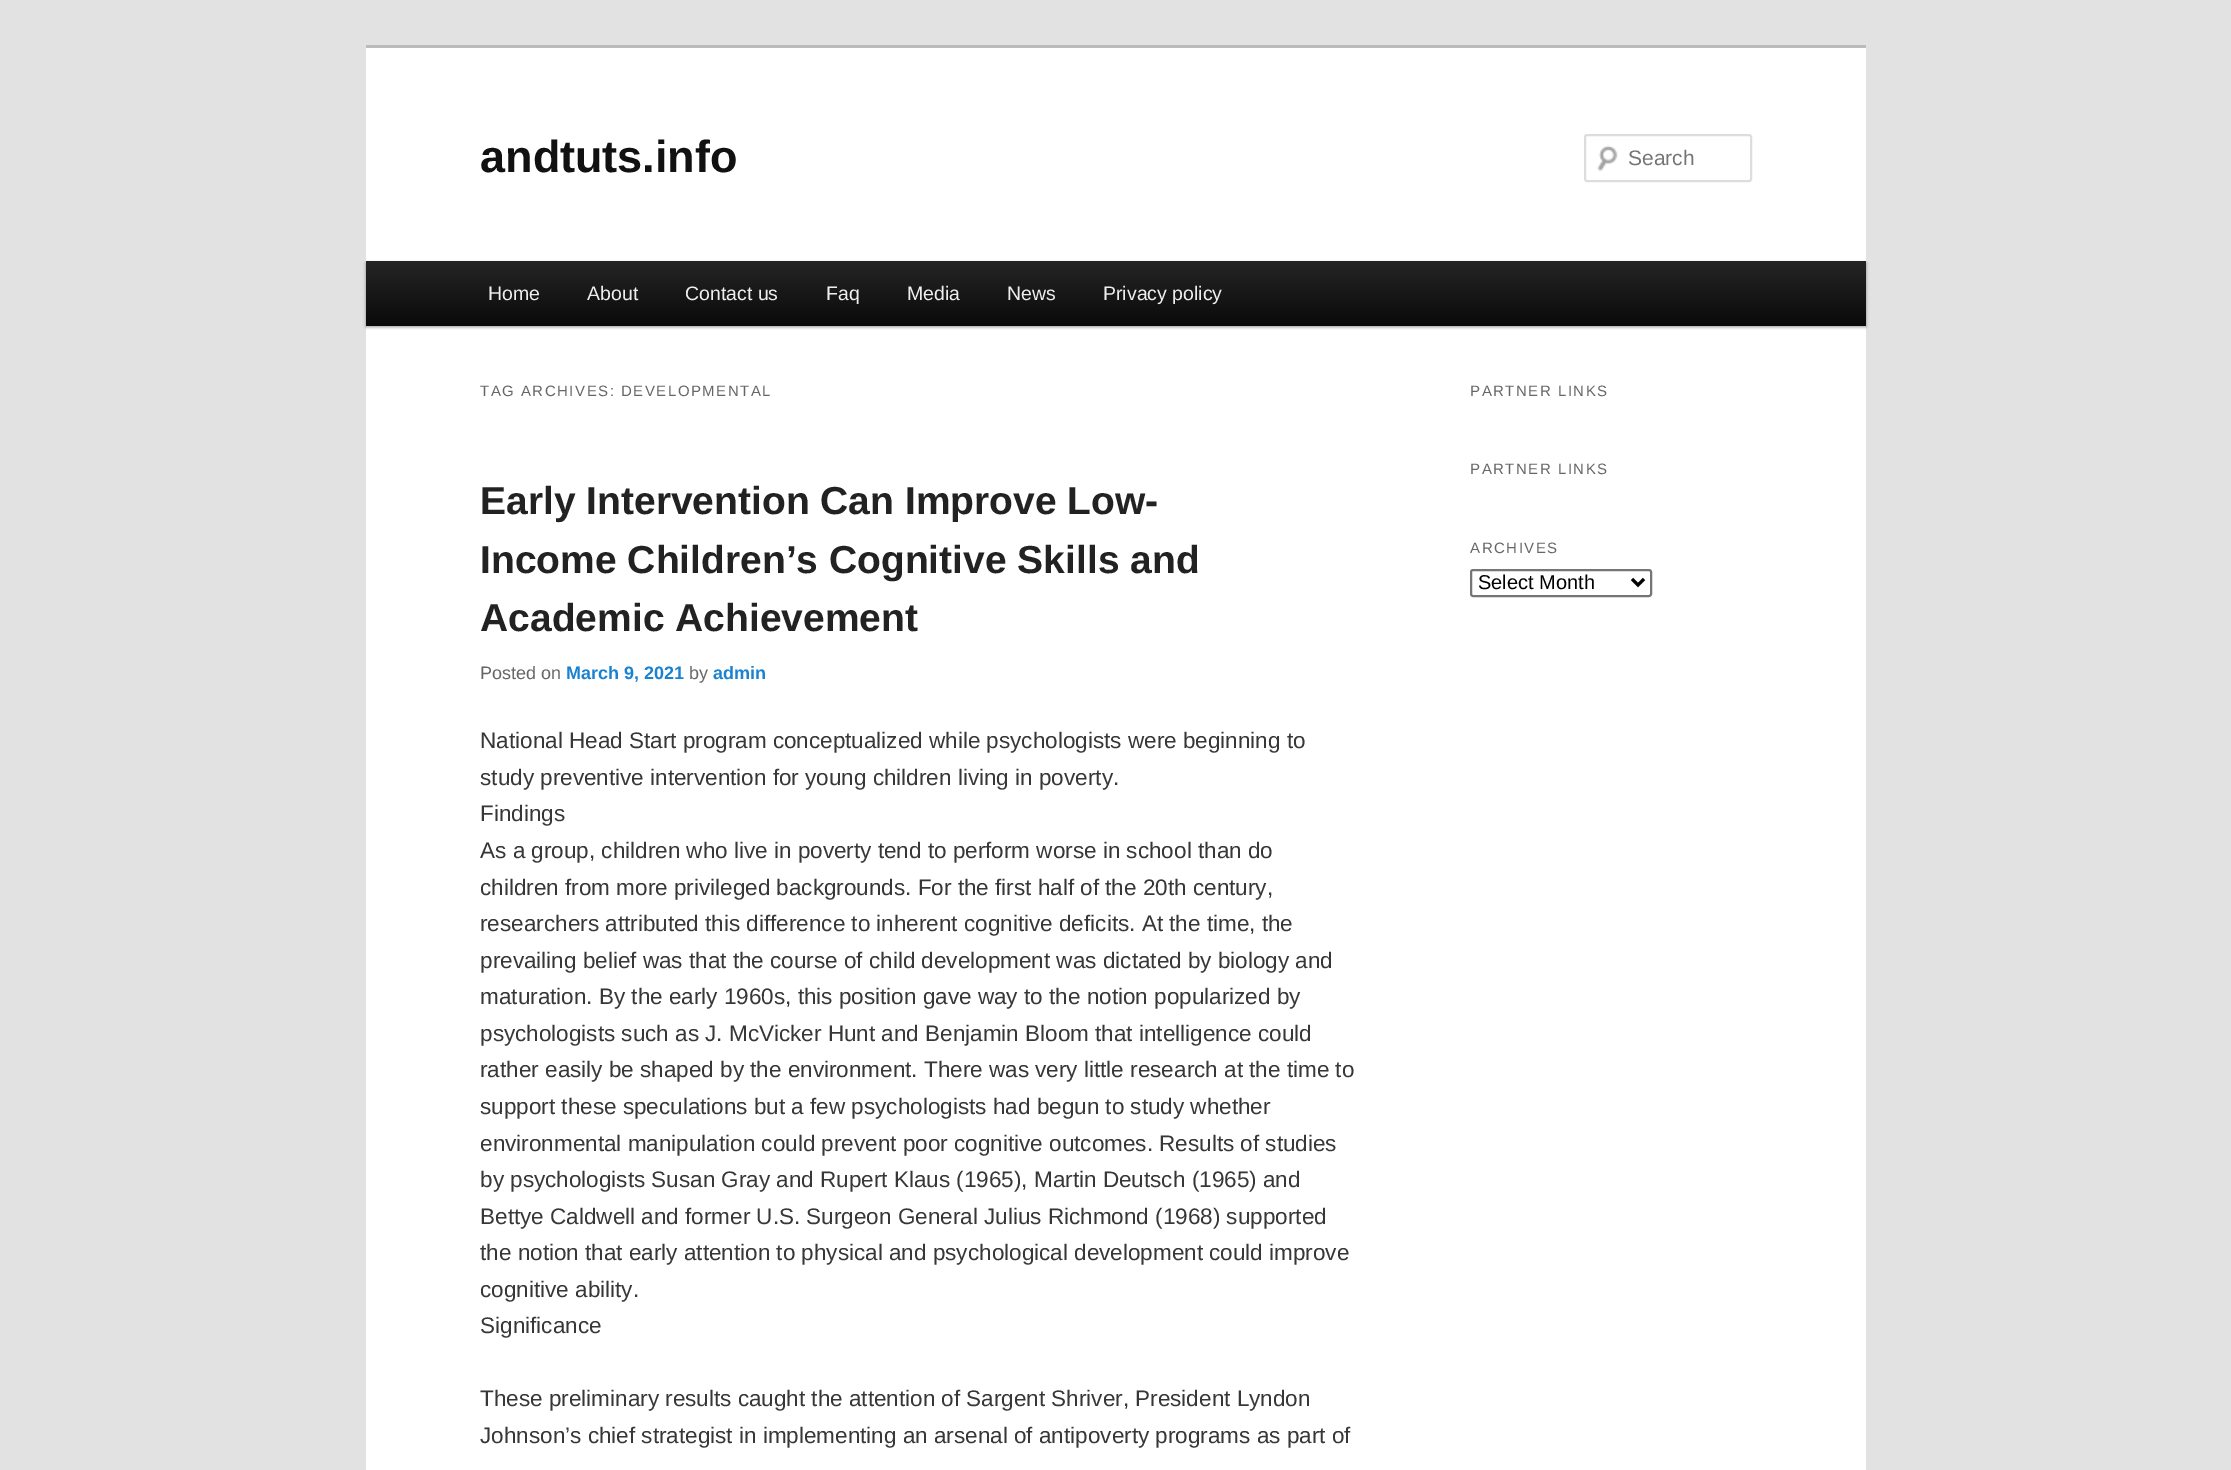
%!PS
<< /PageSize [2231 1470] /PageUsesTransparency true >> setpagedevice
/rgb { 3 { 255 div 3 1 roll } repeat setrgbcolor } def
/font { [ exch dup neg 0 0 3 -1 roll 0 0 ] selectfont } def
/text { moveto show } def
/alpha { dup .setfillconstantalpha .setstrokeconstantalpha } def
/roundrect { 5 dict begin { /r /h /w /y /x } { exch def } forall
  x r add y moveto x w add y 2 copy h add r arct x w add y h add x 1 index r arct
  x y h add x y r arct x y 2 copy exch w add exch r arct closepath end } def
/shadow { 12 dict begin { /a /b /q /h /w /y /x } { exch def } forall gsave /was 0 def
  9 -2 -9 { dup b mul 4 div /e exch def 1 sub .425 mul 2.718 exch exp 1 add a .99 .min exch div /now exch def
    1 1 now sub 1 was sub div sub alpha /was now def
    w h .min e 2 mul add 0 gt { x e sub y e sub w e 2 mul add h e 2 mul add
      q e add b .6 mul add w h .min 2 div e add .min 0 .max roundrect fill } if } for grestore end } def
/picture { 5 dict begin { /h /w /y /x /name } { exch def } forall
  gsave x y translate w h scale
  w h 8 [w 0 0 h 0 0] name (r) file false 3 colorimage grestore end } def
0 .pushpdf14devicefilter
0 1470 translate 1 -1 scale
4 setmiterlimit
226 226 226 rgb
0 0 2231 1470 rectfill
255 255 255 rgb
366 48 1500 1422 rectfill
187 187 187 rgb
366 45 1500 3 rectfill
(img_01.rgb) 1597 145 21 27 picture
221 221 221 rgb
2 setlinewidth
1585 135 166 46 2 roundrect stroke
0 0 0 rgb
366 263 1500 64 0 1.5 0.4 shadow
gsave 366 261 moveto 1500 0 rlineto 0 65 rlineto -1500 0 rlineto closepath clip newpath
<< /ShadingType 2 /ColorSpace /DeviceRGB /Coords [1116 261 1116 326] /Extend [true true] /Function << /FunctionType 2 /Domain [0 1] /C0 [0.145 0.145 0.145] /C1 [0.039 0.039 0.039] /N 1 >> >> shfill grestore
118 118 118 rgb
1471 570 180 26 2 roundrect stroke
0 0 0 rgb
3 setlinewidth
1632 579 moveto 6 6 rlineto 6 -6 rlineto stroke
/LiberationSans-Bold 45 font
17 17 17 rgb
(andtuts.info) 480 172 text
/LiberationSans-Regular 21 font
117 117 117 rgb
(Search) 1628 165 text
/LiberationSans-Regular 19.5 font
238 238 238 rgb
(Home) 488 300 text
(About) 587 300 text
(Contact us) 685 300 text
(Faq) 826 300 text
(Media) 907 300 text
(News) 1007 300 text
(Privacy policy) 1103 300 text
/LiberationSans-Regular 15 font
102 102 102 rgb
480 396 moveto 1.5 0 (TAG ARCHIVES: DEVELOPMENTAL) ashow
/LiberationSans-Bold 39 font
34 34 34 rgb
(Early Intervention Can Improve Low-) 480 514 text
(Income Children’s Cognitive Skills and) 480 573 text
(Academic Achievement) 480 631 text
/LiberationSans-Regular 18 font
102 102 102 rgb
(Posted on) 480 679 text
/LiberationSans-Bold 18 font
25 130 209 rgb
(March 9, 2021) 566 679 text
/LiberationSans-Regular 18 font
102 102 102 rgb
(by) 689 679 text
/LiberationSans-Bold 18 font
25 130 209 rgb
(admin) 713 679 text
/LiberationSans-Regular 22.5 font
55 55 55 rgb
(National Head Start program conceptualized while psychologists were beginning to) 480 748 text
(study preventive intervention for young children living in poverty.) 480 785 text
(Findings) 480 821 text
(As a group, children who live in poverty tend to perform worse in school than do) 480 858 text
(children from more privileged backgrounds. For the first half of the 20th century,) 480 895 text
(researchers attributed this difference to inherent cognitive deficits. At the time, the) 480 931 text
(prevailing belief was that the course of child development was dictated by biology and) 480 968 text
(maturation. By the early 1960s, this position gave way to the notion popularized by) 480 1004 text
(psychologists such as J. McVicker Hunt and Benjamin Bloom that intelligence could) 480 1041 text
(rather easily be shaped by the environment. There was very little research at the time to) 480 1077 text
(support these speculations but a few psychologists had begun to study whether) 480 1114 text
(environmental manipulation could prevent poor cognitive outcomes. Results of studies) 480 1151 text
(by psychologists Susan Gray and Rupert Klaus \(1965\), Martin Deutsch \(1965\) and) 480 1187 text
(Bettye Caldwell and former U.S. Surgeon General Julius Richmond \(1968\) supported) 480 1224 text
(the notion that early attention to physical and psychological development could improve) 480 1260 text
(cognitive ability.) 480 1297 text
(Significance) 480 1333 text
(These preliminary results caught the attention of Sargent Shriver, President Lyndon) 480 1406 text
(Johnson’s chief strategist in implementing an arsenal of antipoverty programs as part of) 480 1443 text
/LiberationSans-Regular 15 font
102 102 102 rgb
1470 396 moveto 1.5 0 (PARTNER LINKS) ashow
1470 474 moveto 1.5 0 (PARTNER LINKS) ashow
1470 553 moveto 1.5 0 (ARCHIVES) ashow
/LiberationSans-Regular 20 font
0 0 0 rgb
(Select Month) 1478 589 text
.poppdf14devicefilter showpage
